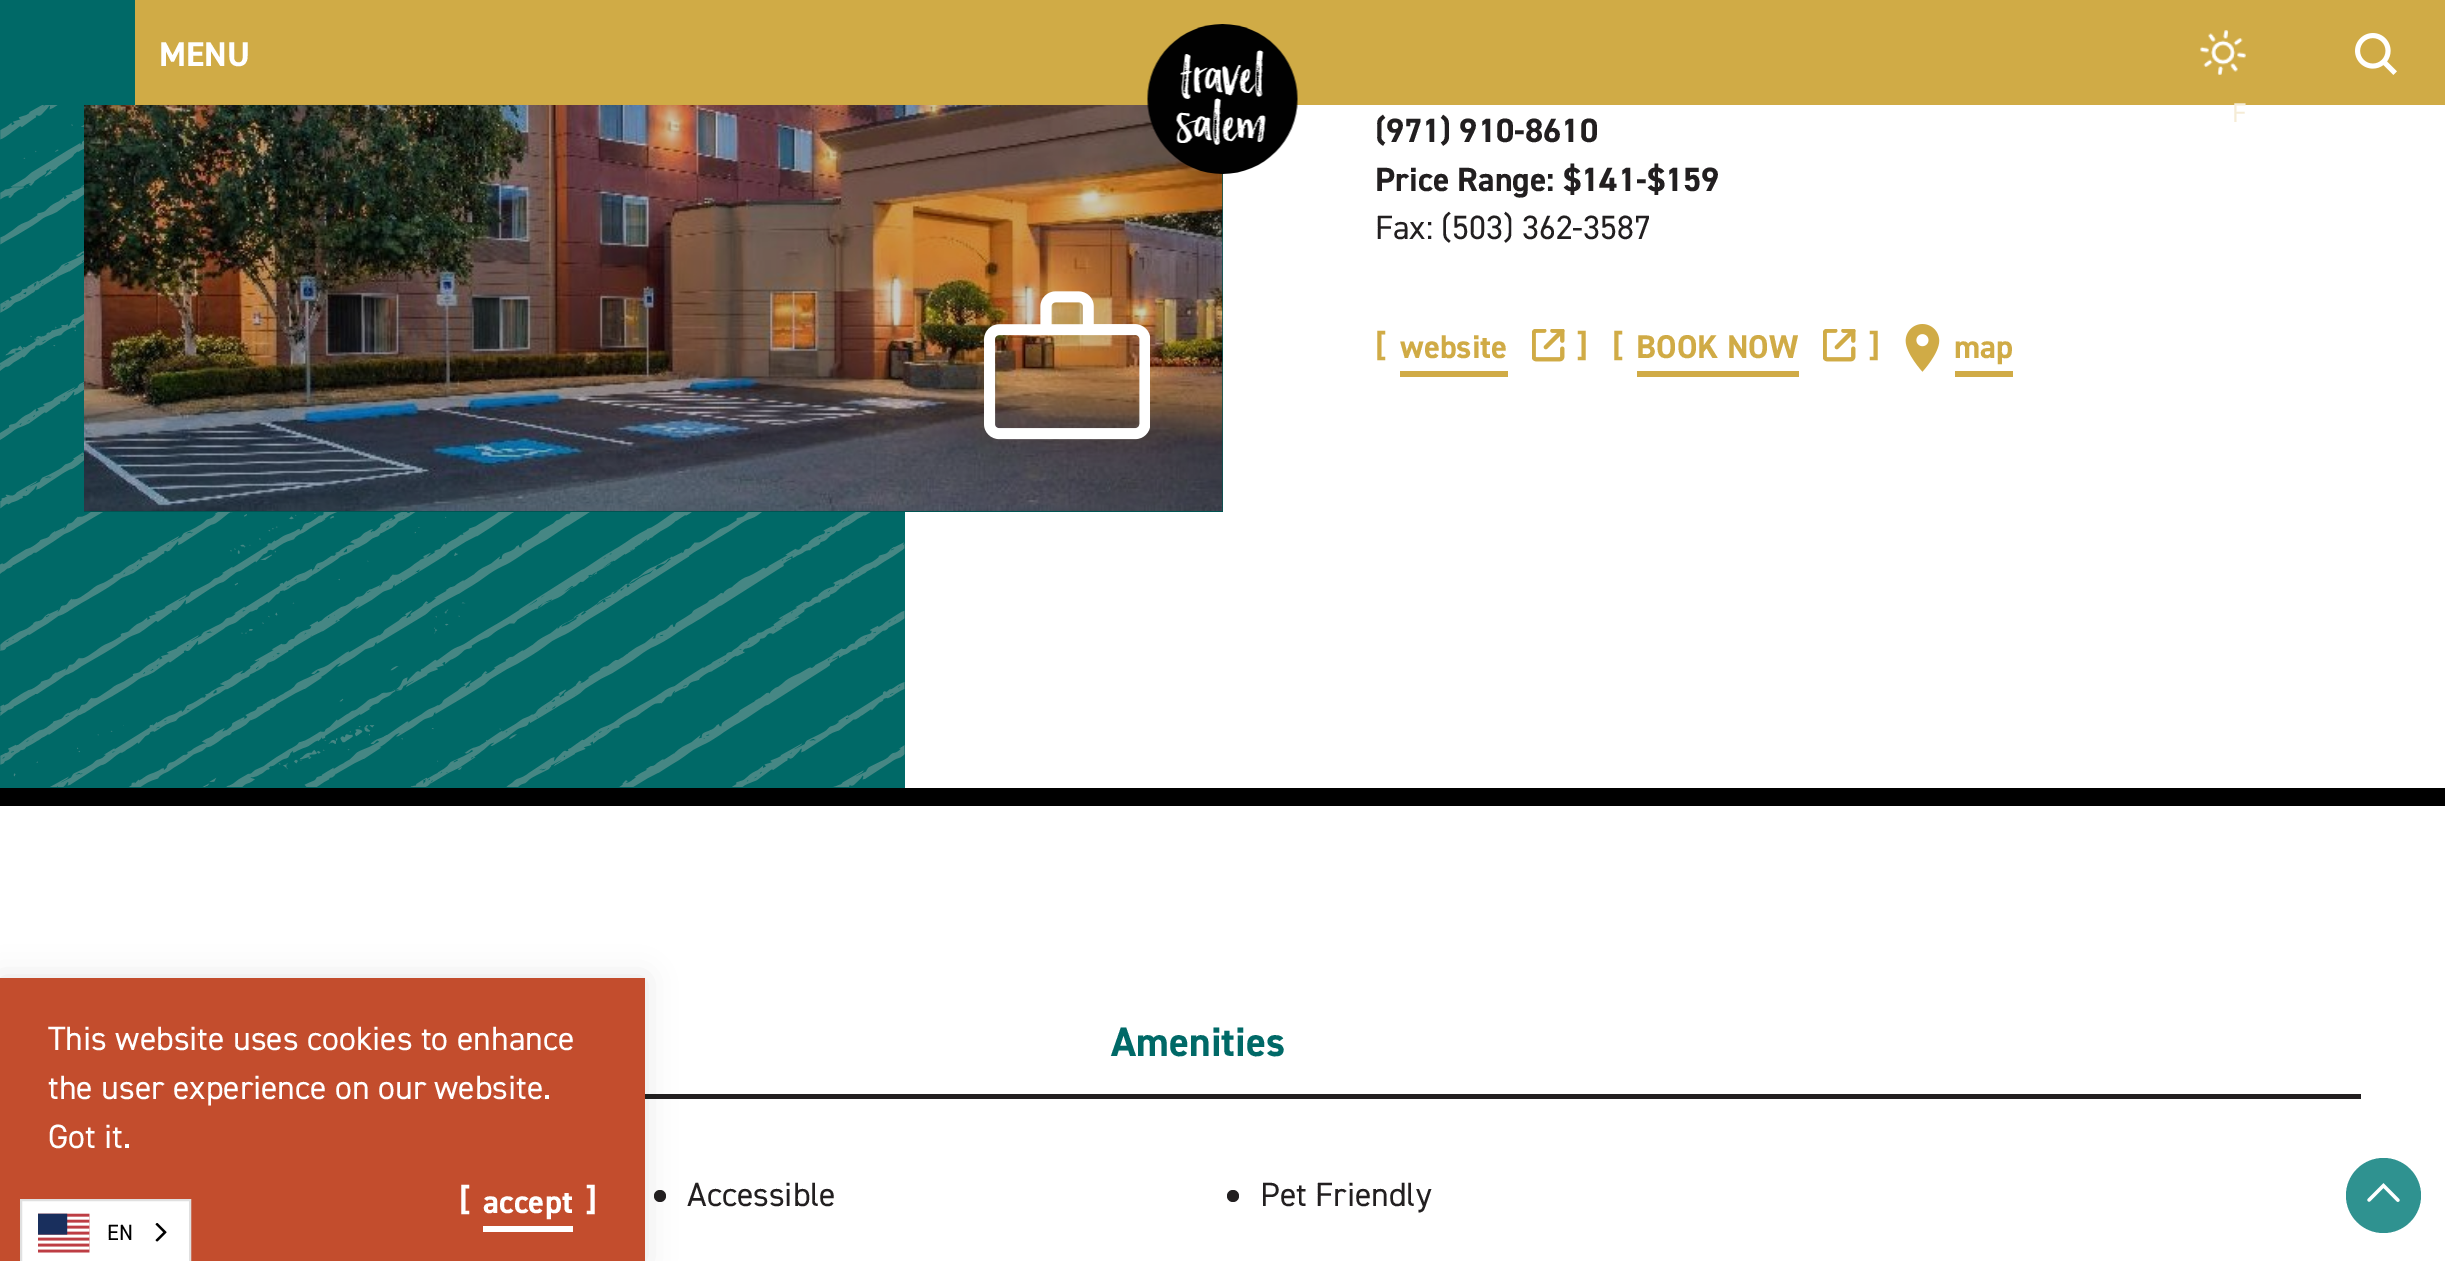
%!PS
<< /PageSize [2445 1261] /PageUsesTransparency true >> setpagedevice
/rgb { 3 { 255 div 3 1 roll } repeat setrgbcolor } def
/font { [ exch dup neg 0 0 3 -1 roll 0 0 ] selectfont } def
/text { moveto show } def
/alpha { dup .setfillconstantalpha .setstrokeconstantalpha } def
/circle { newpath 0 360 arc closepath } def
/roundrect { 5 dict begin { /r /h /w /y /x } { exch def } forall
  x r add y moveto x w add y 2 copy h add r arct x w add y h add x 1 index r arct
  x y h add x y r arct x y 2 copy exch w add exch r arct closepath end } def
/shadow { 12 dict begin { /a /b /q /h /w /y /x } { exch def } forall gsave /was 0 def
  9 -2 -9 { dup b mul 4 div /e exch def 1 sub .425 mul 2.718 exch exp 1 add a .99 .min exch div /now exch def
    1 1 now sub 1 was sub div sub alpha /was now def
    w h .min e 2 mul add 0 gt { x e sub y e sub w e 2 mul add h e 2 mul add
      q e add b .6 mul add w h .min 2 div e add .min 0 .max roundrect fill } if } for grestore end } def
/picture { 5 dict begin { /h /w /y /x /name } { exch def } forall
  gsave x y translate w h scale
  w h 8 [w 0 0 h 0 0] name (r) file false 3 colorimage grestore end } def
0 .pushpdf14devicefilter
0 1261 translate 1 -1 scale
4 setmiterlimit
255 255 255 rgb
0 0 2445 1261 rectfill
208 171 70 rgb
135 0 2310 105 rectfill
0 105 103 rgb
0 0 135 105 rectfill
0 105 905 683 rectfill
(img_04.rgb) 0 105 905 682 picture
84 174 1139 338 rectfill
(img_05.rgb) 84 105 1139 406 picture
0.2 alpha
0 0 0 rgb
84 105 1139 407 rectfill
1 alpha
(img_01.rgb) 1147 24 151 150 picture
(img_02.rgb) 2355 33 42 42 picture
(img_03.rgb) 2200 30 46 45 picture
34 31 32 rgb
645 1094 1716 5 rectfill
660 1196 6 circle fill
0 0 0 rgb
0 978 645 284 0 15 0.1 shadow
195 77 45 rgb
0 978 645 283 rectfill
255 255 255 rgb
483 1226 90 6 rectfill
0 0 0 rgb
0 788 2445 18 rectfill
(img_06.rgb) 984 291 166 149 picture
208 171 70 rgb
1400 371 108 6 rectfill
(img_07.rgb) 1532 329 33 33 picture
1637 371 162 6 rectfill
(img_07.rgb) 1823 329 33 33 picture
(img_08.rgb) 1905 324 35 48 picture
1955 371 58 6 rectfill
34 31 32 rgb
1233 1196 6 circle fill
47 146 144 rgb
2383.5 1195.5 37.5 circle fill
(img_09.rgb) 2367 1183 33 19 picture
255 255 255 rgb
21 1200 moveto 169 0 rlineto 0 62 rlineto -169 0 rlineto closepath gsave fill grestore
224 224 224 rgb
2 setlinewidth
stroke
(img_10.rgb) 38 1213 52 40 picture
(img_11.rgb) 155 1223 12 19 picture
/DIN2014-Bold 34.5 font
255 255 255 rgb
(MENU) 159 66 text
/DIN2014-Regular 27 font
245 236 214 rgb
(F) 2232 122 text
/DIN2014-Regular 33.75 font
255 255 255 rgb
(This website uses cookies to enhance) 48 1050 text
(the user experience on our website.) 48 1099 text
(Got it.) 48 1148 text
/DIN2014-Bold 33 font
([) 459 1211 text
(accept) 483 1213 text
(]) 586 1211 text
/DIN2014-Bold 33.75 font
34 31 32 rgb
(\(971\) 910-8610) 1375 142 text
(Price Range: $141-$159) 1375 191 text
/DIN2014-Regular 33.75 font
(Fax: \(503\) 362-3587) 1375 239 text
/DIN2014-Bold 33 font
208 171 70 rgb
([) 1375 357 text
(website) 1400 358 text
(]) 1577 357 text
([) 1612 357 text
(BOOK NOW) 1636 358 text
(]) 1869 357 text
(map) 1954 358 text
/DIN2014-Bold 41.25 font
0 105 103 rgb
(Amenities) 1111 1056 text
/DIN2014-Regular 33.75 font
34 31 32 rgb
(Accessible) 687 1206 text
(Pet Friendly) 1260 1206 text
/DIN2014-Regular 22 font
0 0 0 rgb
(EN) 107 1240 text
.poppdf14devicefilter showpage
